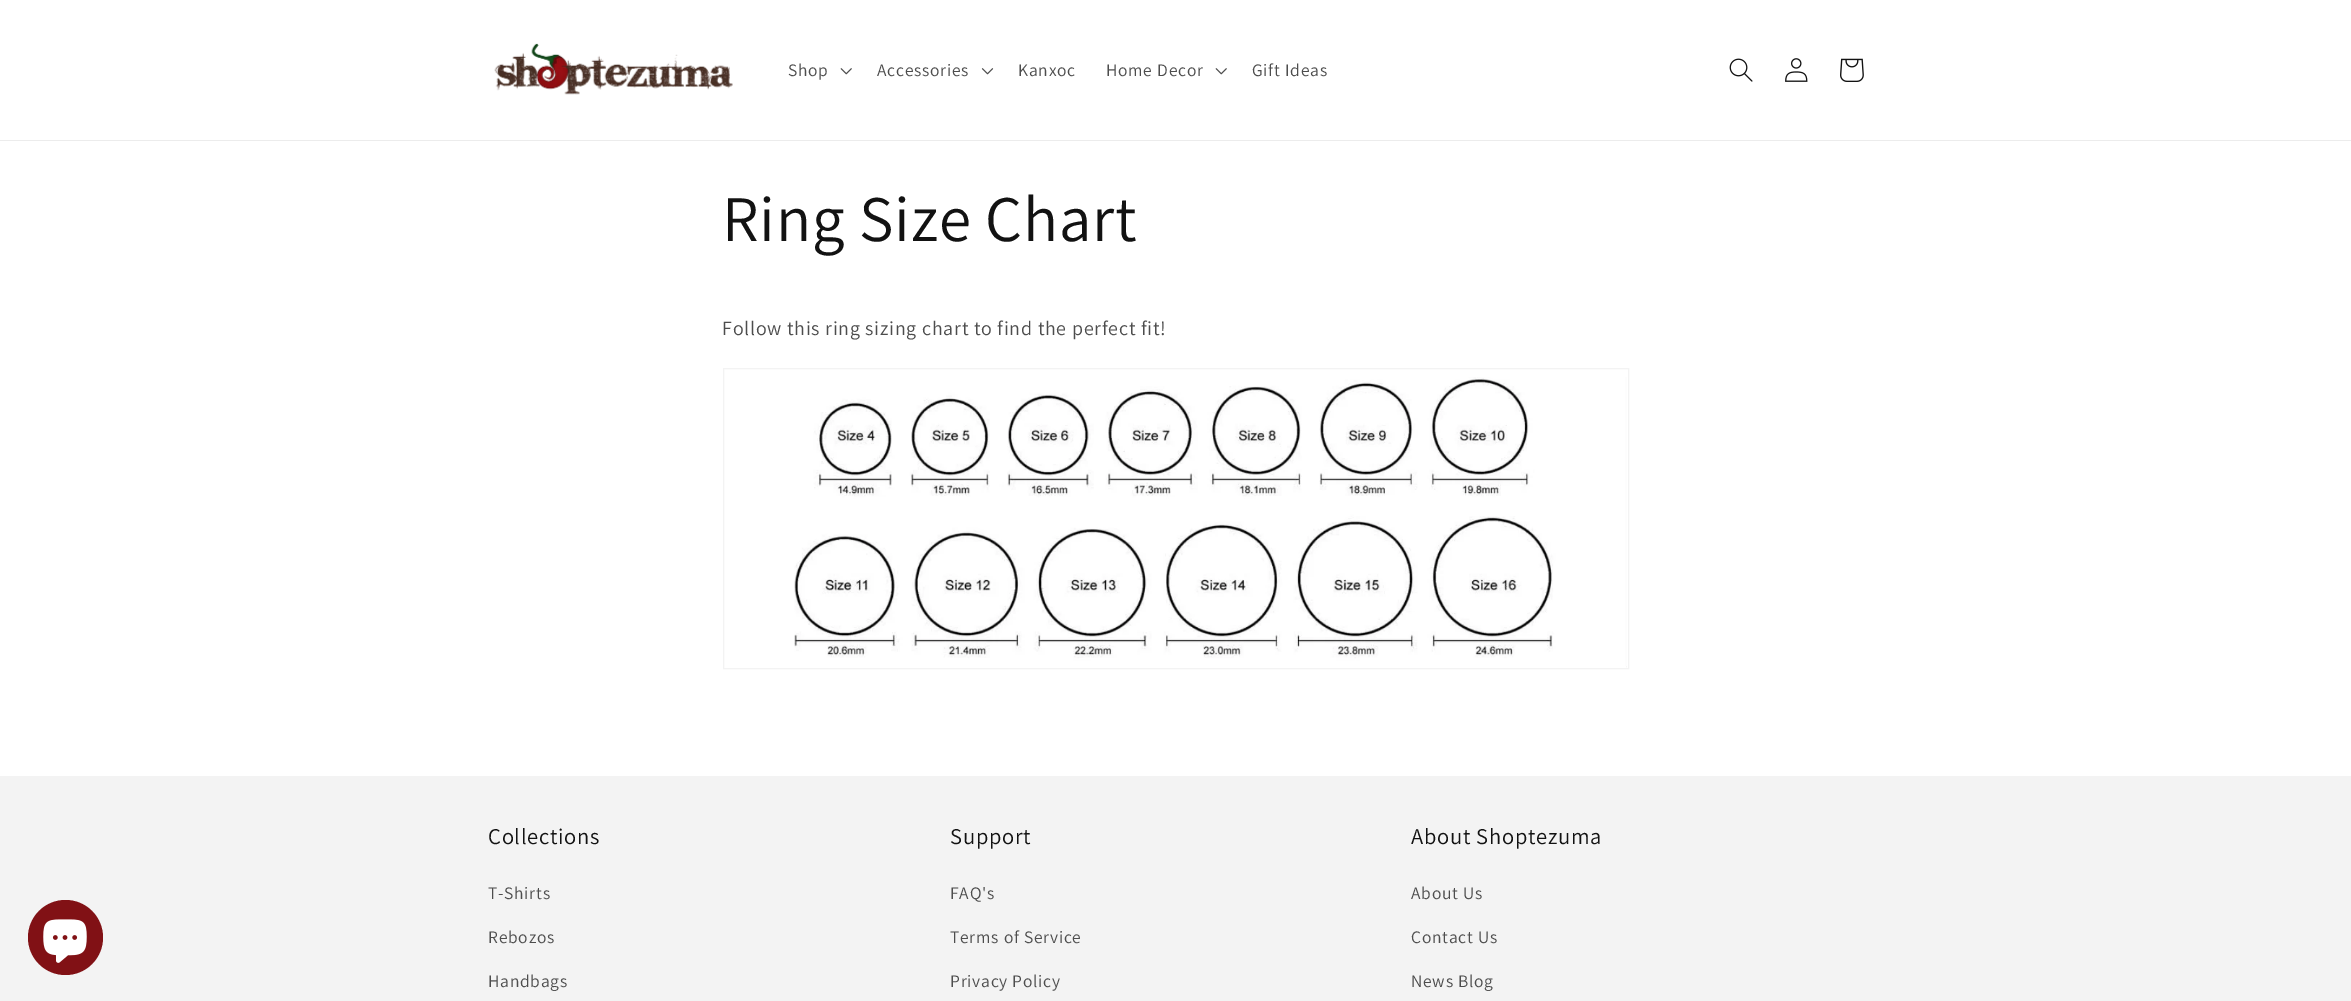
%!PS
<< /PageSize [2351 1001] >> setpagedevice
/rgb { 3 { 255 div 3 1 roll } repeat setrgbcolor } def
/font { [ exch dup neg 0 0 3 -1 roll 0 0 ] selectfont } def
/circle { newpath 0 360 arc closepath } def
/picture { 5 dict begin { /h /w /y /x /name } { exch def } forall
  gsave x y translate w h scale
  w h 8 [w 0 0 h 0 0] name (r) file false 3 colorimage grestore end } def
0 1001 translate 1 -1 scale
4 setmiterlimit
255 255 255 rgb
0 0 2351 1001 rectfill
236 236 236 rgb
0 140 2351 1 rectfill
(img_01.rgb) 494 43 239 52 picture
(img_02.rgb) 840 68 12 7 picture
(img_03.rgb) 981 68 13 7 picture
(img_02.rgb) 1215 68 12 7 picture
(img_04.rgb) 1729 58 24 24 picture
(img_05.rgb) 1785 58 23 24 picture
(img_06.rgb) 1840 58 24 24 picture
243 243 243 rgb
723.5 368.5 905 300 rectstroke
(img_07.rgb) 794 377 833 291 picture
0 776 2351 225 rectfill
129 17 21 rgb
65.5 937.5 37.5 circle fill
(img_08.rgb) 43 919 44 44 picture
/Assistant-Regular 17.5 font
77 77 77 rgb
788 76 moveto 0.75 0 (Shop) ashow
877 76 moveto 0.75 0 (Accessories) ashow
1018 76 moveto 0.75 0 (Kanxoc) ashow
1106 76 moveto 0.75 0 (Home Decor) ashow
1252 76 moveto 0.75 0 (Gift Ideas) ashow
/Assistant-Regular 65 font
18 18 18 rgb
722 241 moveto 0.75 0 (Ring Size Chart) ashow
/Assistant-Regular 20 font
77 77 77 rgb
722 335 moveto 0.75 0 (Follow this ring sizing chart to find the perfect fit!) ashow
/Assistant-Regular 22.5 font
18 18 18 rgb
488 844 moveto 0.75 0 (Collections) ashow
/Assistant-Regular 17.5 font
77 77 77 rgb
488 899 moveto 0.75 0 (T-Shirts) ashow
488 943 moveto 0.75 0 (Rebozos) ashow
488 987 moveto 0.75 0 (Handbags) ashow
/Assistant-Regular 22.5 font
18 18 18 rgb
950 844 moveto 0.75 0 (Support) ashow
/Assistant-Regular 17.5 font
77 77 77 rgb
950 899 moveto 0.75 0 (FAQ's) ashow
950 943 moveto 0.75 0 (Terms of Service) ashow
950 987 moveto 0.75 0 (Privacy Policy) ashow
/Assistant-Regular 22.5 font
18 18 18 rgb
1411 844 moveto 0.75 0 (About Shoptezuma) ashow
/Assistant-Regular 17.5 font
77 77 77 rgb
1411 899 moveto 0.75 0 (About Us) ashow
1411 943 moveto 0.75 0 (Contact Us) ashow
1411 987 moveto 0.75 0 (News Blog) ashow
showpage
